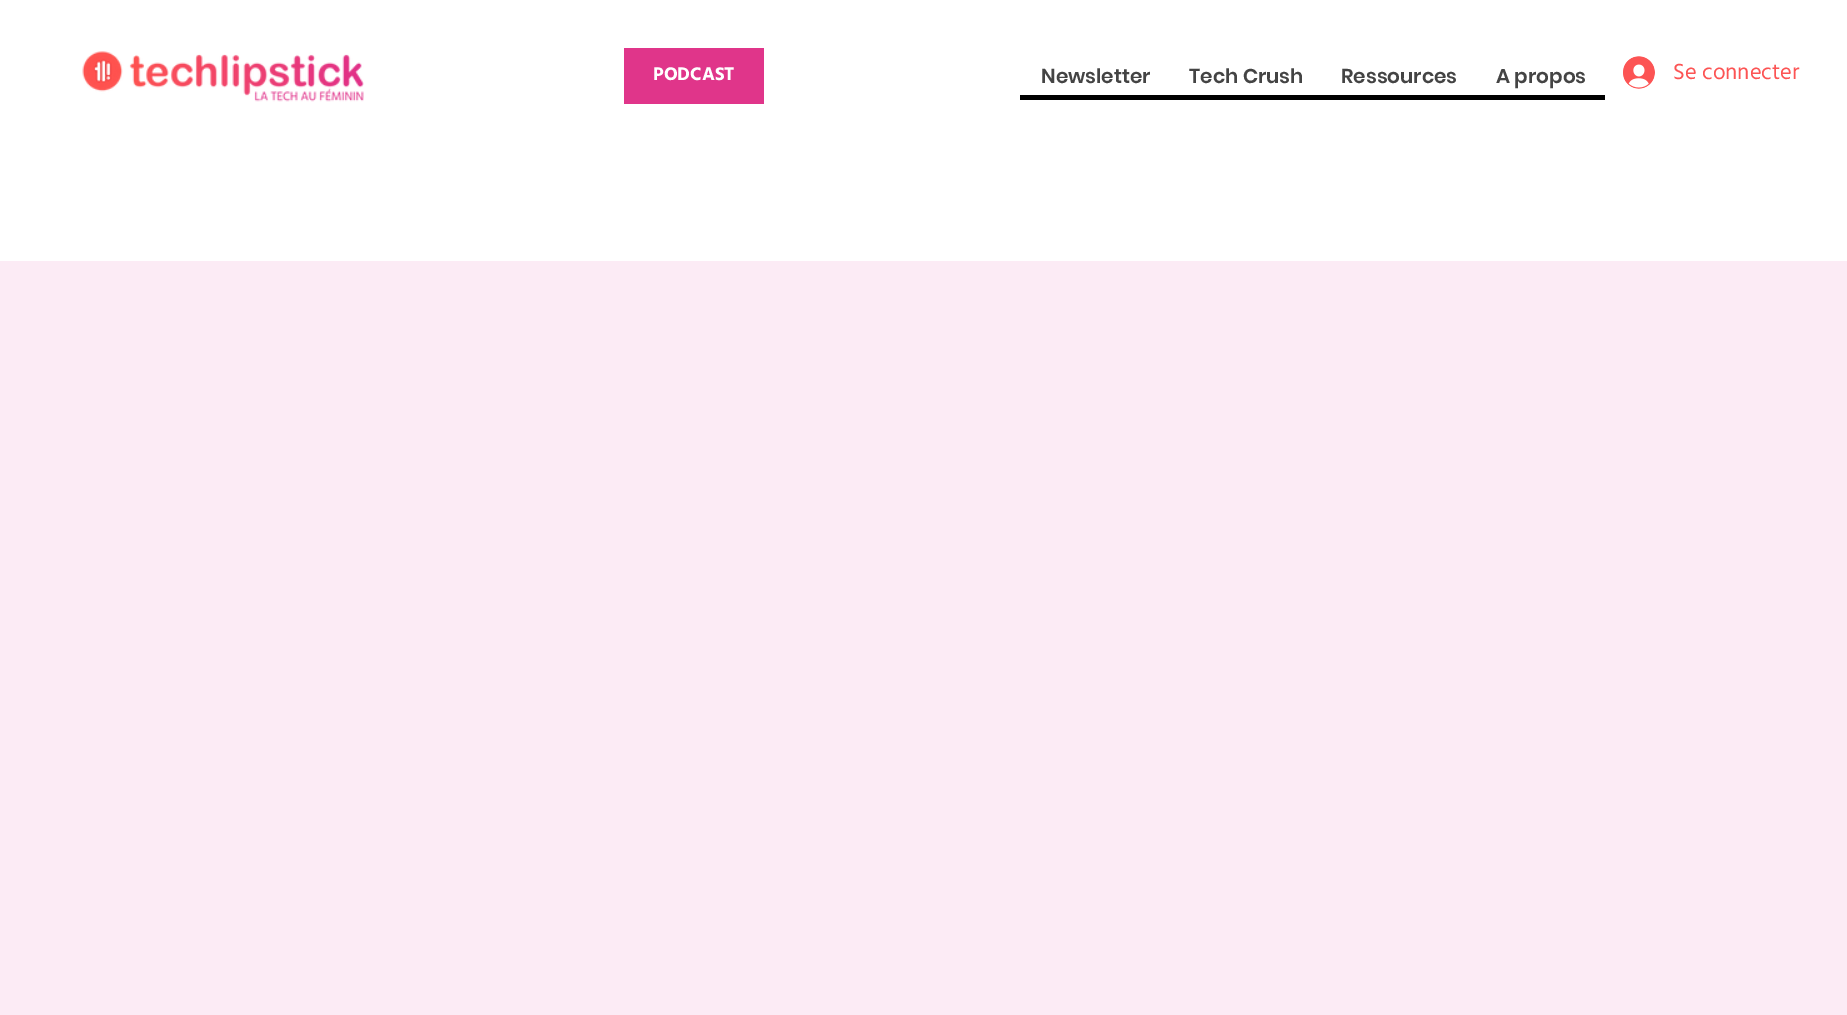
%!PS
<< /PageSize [1847 1015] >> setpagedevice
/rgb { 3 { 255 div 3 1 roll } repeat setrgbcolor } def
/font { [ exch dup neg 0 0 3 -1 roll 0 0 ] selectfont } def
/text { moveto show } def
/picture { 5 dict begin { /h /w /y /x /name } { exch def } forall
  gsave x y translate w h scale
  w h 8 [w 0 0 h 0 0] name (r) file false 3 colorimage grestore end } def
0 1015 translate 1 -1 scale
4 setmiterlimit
255 255 255 rgb
0 0 1847 1015 rectfill
224 53 138 rgb
624 48 140 56 rectfill
(img_01.rgb) 82 51 282 51 picture
0 0 0 rgb
1020 95 585 5 rectfill
(img_02.rgb) 1623 56 32 33 picture
252 235 245 rgb
0 261 1847 754 rectfill
/HindMadurai-Bold 18.75 font
255 255 255 rgb
(PODCAST) 653 80 text
/Poppins-SemiBold 20 font
68 68 68 rgb
(Newsletter) 1041 83 text
(Tech Crush) 1189 83 text
(Ressources) 1341 83 text
(A propos) 1496 83 text
/HindMadurai-Regular 22.5 font
252 84 84 rgb
(Se connecter) 1673 79 text
showpage
